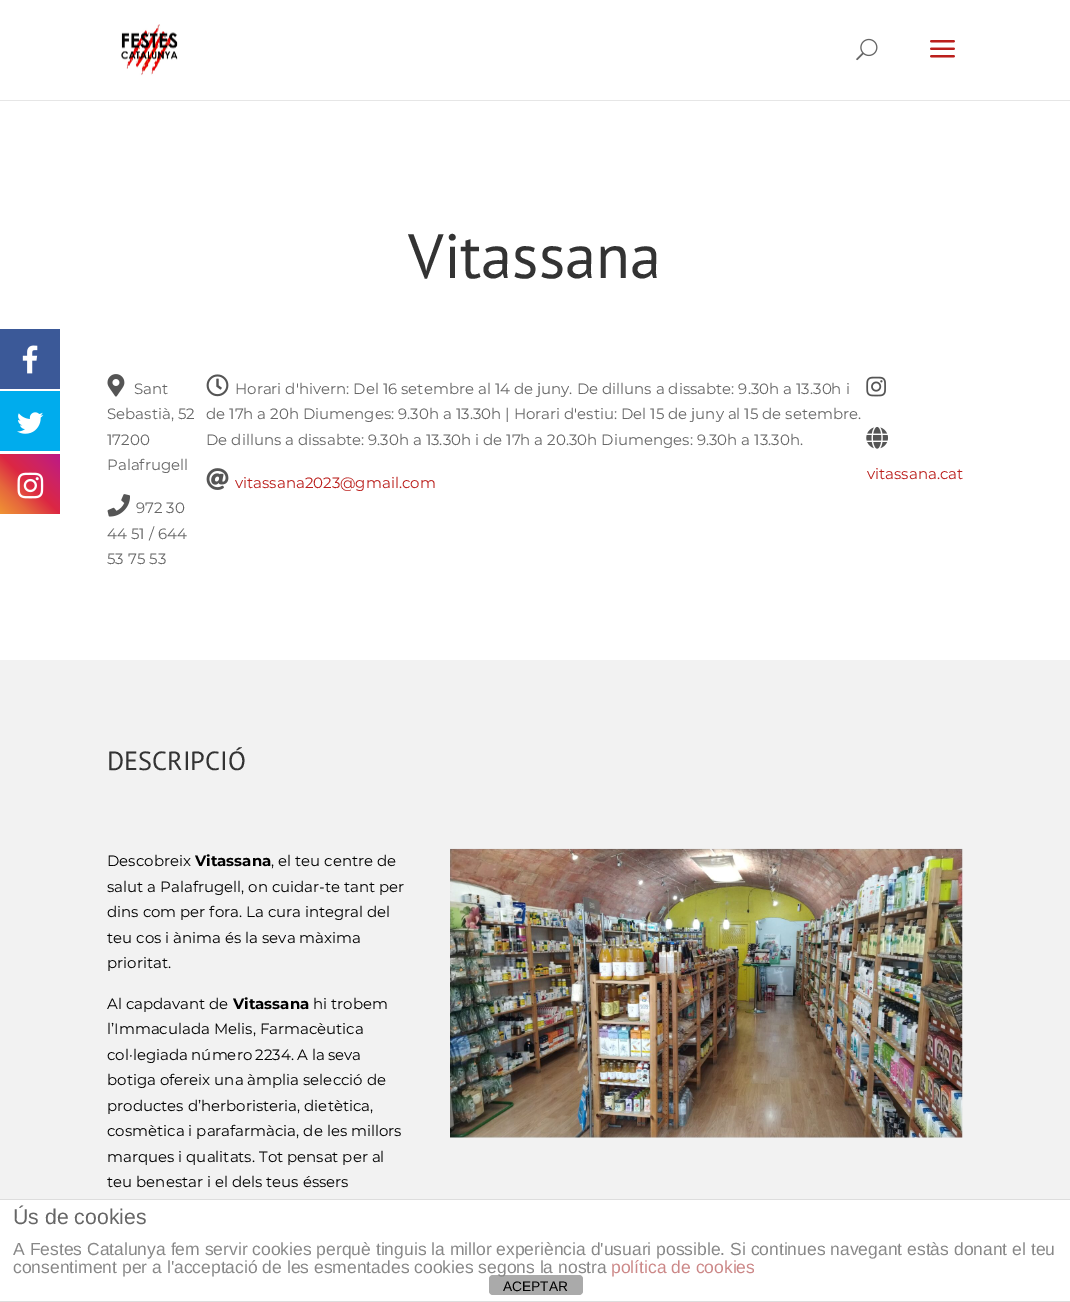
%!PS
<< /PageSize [1070 1302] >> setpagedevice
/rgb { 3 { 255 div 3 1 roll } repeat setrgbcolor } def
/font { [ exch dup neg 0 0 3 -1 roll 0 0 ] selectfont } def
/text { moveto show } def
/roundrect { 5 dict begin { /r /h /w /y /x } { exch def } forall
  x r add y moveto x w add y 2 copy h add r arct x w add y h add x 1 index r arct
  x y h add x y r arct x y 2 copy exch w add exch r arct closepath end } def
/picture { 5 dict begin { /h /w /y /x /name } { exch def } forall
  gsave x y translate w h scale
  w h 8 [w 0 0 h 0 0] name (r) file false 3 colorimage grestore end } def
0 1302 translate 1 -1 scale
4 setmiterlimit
255 255 255 rgb
0 0 1070 1302 rectfill
59 89 152 rgb
0 329 60 60 rectfill
(img_01.rgb) 22 345 16 29 picture
0 172 237 rgb
0 391 60 60 rectfill
(img_02.rgb) 17 412 27 22 picture
gsave 0 454 moveto 60 0 rlineto 0 60 rlineto -60 0 rlineto closepath clip newpath
<< /ShadingType 2 /ColorSpace /DeviceRGB /Coords [0 514 60 454] /Extend [true true] /Function << /FunctionType 3 /Domain [0 1] /Functions [<< /FunctionType 2 /Domain [0 1] /C0 [0.941 0.58 0.2] /C1 [0.902 0.408 0.235] /N 1 >> << /FunctionType 2 /Domain [0 1] /C0 [0.902 0.408 0.235] /C1 [0.863 0.153 0.263] /N 1 >> << /FunctionType 2 /Domain [0 1] /C0 [0.863 0.153 0.263] /C1 [0.8 0.137 0.4] /N 1 >> << /FunctionType 2 /Domain [0 1] /C0 [0.8 0.137 0.4] /C1 [0.737 0.094 0.533] /N 1 >>] /Bounds [0.25 0.5 0.75] /Encode [0 1 0 1 0 1 0 1] >> >> shfill grestore
(img_03.rgb) 17 472 27 27 picture
230 230 230 rgb
0 100 1070 1 rectfill
(img_04.rgb) 121 24 57 52 picture
(img_05.rgb) 856 38 22 23 picture
(img_06.rgb) 930 40 25 18 picture
(img_07.rgb) 107 374 18 23 picture
(img_08.rgb) 107 494 23 23 picture
(img_09.rgb) 206 374 23 23 picture
(img_10.rgb) 206 468 23 22 picture
(img_11.rgb) 866 376 20 21 picture
(img_12.rgb) 866 426 22 23 picture
242 242 242 rgb
0 660 1070 539 rectfill
(img_13.rgb) 450 848 513 290 picture
221 221 221 rgb
0 1199 1070 1 rectfill
0 1301 1070 1 rectfill
170 170 170 rgb
489 1275 94 20 4 roundrect fill
/PTSans-Regular 62.5 font
51 51 51 rgb
(Vitassana) 408 278 text
/Montserrat-Regular 15 font
102 102 102 rgb
(Sant) 134 394 text
(Sebastià, 52) 107 419 text
(17200) 107 445 text
(Palafrugell) 107 470 text
(972 30) 136 513 text
(44 51 / 644) 107 539 text
(53 75 53) 107 564 text
(Horari d'hivern: Del 16 setembre al 14 de juny. De dilluns a dissabte: 9.30h a 13.30h i) 235 394 text
(de 17h a 20h Diumenges: 9.30h a 13.30h | Horari d'estiu: Del 15 de juny al 15 de setembre.) 206 419 text
(De dilluns a dissabte: 9.30h a 13.30h i de 17h a 20.30h Diumenges: 9.30h a 13.30h.) 206 445 text
187 31 28 rgb
(vitassana2023@gmail.com) 235 488 text
(vitassana.cat) 867 479 text
/PTSans-Regular 26.25 font
51 51 51 rgb
(DESCRIPCIÓ) 107 770 text
/Montserrat-Regular 15 font
0 0 0 rgb
(Descobreix) 107 866 text
/Montserrat-Bold 15 font
(Vitassana) 195 866 text
/Montserrat-Regular 15 font
(, el teu centre de) 271 866 text
(salut a Palafrugell, on cuidar-te tant per) 107 892 text
(dins com per fora. La cura integral del) 107 917 text
(teu cos i ànima és la seva màxima) 107 943 text
(prioritat.) 107 968 text
(Al capdavant de) 107 1009 text
/Montserrat-Bold 15 font
(Vitassana) 233 1009 text
/Montserrat-Regular 15 font
(hi trobem) 313 1009 text
(l’Immaculada Melis, Farmacèutica) 107 1034 text
107 1060 moveto -0.5 0 32 (col·legiada número 2234. A la seva) widthshow
(botiga ofereix una àmplia selecció de) 107 1085 text
(productes d’herboristeria, dietètica,) 107 1111 text
(cosmètica i parafarmàcia, de les millors) 107 1136 text
(marques i qualitats. Tot pensat per al) 107 1162 text
(teu benestar i el dels teus éssers) 107 1187 text
/LiberationSans-Regular 21.25 font
102 102 102 rgb
(Ús de cookies) 13 1224 text
/LiberationSans-Regular 17.5 font
136 136 136 rgb
(A Festes Catalunya fem servir cookies perquè tinguis la millor experiència d'usuari possible. Si continues navegant estàs donant el teu) 13 1255 text
(consentiment per a l'acceptació de les esmentades cookies segons la nostra) 13 1273 text
204 136 136 rgb
(política de cookies) 611 1273 text
/LiberationSans-Regular 13.75 font
0 0 0 rgb
(ACEPTAR) 503 1291 text
showpage
